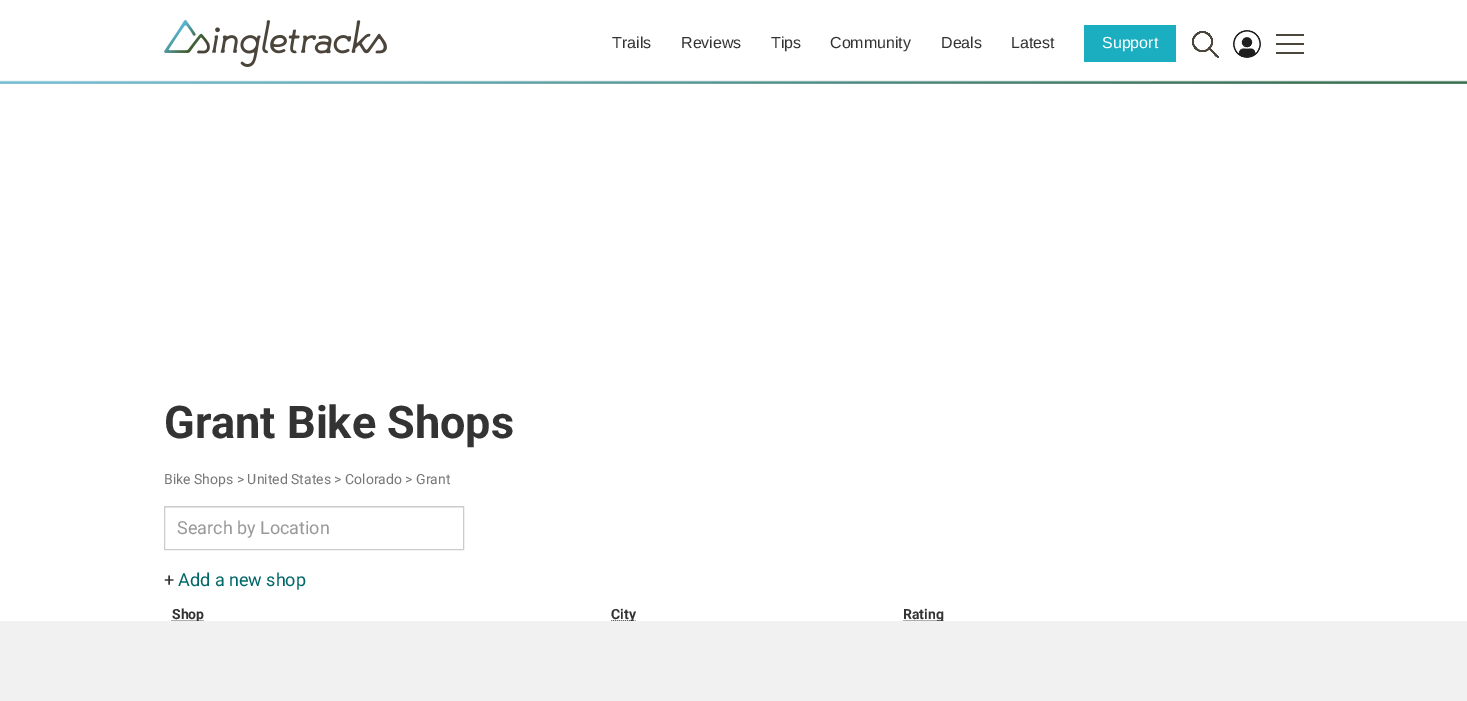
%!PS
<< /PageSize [1467 701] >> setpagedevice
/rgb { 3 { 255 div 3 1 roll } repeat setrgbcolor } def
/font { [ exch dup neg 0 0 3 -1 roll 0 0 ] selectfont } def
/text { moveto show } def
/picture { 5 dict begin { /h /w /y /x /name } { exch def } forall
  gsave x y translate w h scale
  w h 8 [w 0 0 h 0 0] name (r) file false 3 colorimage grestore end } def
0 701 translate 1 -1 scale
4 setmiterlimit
255 255 255 rgb
0 0 1467 701 rectfill
(img_01.rgb) 0 80 1467 4 picture
(img_02.rgb) 164 20 223 47 picture
26 174 192 rgb
1084 25 92 37 rectfill
(img_03.rgb) 1192 31 27 27 picture
(img_04.rgb) 1233 30 28 28 picture
(img_05.rgb) 1276 34 28 20 picture
236 236 236 rgb
165 507 298 1 rectfill
204 204 204 rgb
164.5 506.5 299 43 rectstroke
102 102 102 rgb
[1 1] 0 setdash
171.5 620.5 moveto 32.5 0 rlineto stroke
611 620.5 moveto 24.5 0 rlineto stroke
903.5 620.5 moveto 40.5 0 rlineto stroke
/LiberationSans-Regular 16 font
51 51 51 rgb
(Trails) 612 48 text
(Reviews) 681 48 text
(Tips) 771 48 text
(Community) 830 48 text
(Deals) 941 48 text
(Latest) 1011 48 text
255 255 255 rgb
(Support) 1102 48 text
/Roboto-Bold 45 font
51 51 51 rgb
(Grant Bike Shops) 164 438 text
/Roboto-Regular 14 font
119 119 119 rgb
(Bike Shops > United States > Colorado > Grant) 164 484 text
/Roboto-Regular 18 font
153 153 153 rgb
(Search by Location) 177 534 text
51 51 51 rgb
(+) 164 586 text
0 102 102 rgb
(Add a new shop) 178 586 text
/Roboto-Bold 14 font
51 51 51 rgb
(Shop) 172 619 text
(City) 611 619 text
(Rating) 903 619 text
241 241 241 rgb
0 621 1467 80 rectfill
showpage
